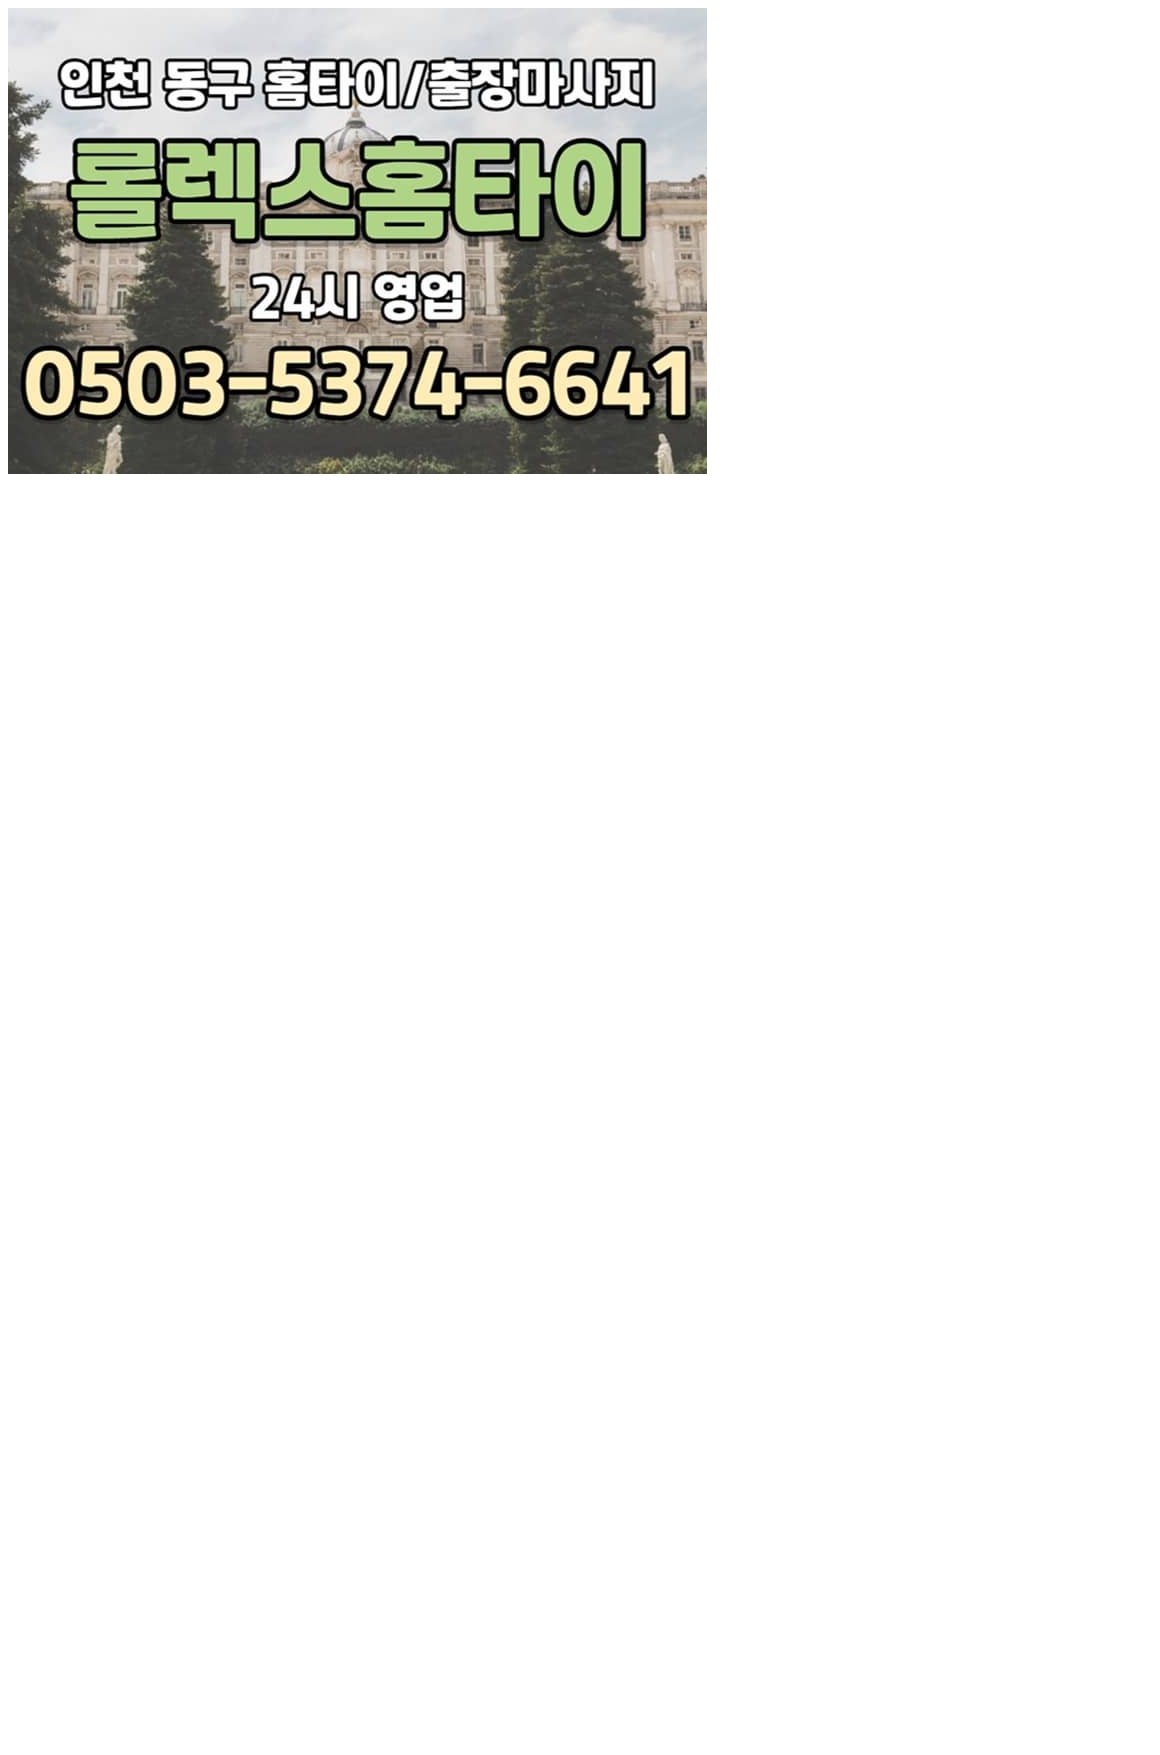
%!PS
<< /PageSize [1160 1755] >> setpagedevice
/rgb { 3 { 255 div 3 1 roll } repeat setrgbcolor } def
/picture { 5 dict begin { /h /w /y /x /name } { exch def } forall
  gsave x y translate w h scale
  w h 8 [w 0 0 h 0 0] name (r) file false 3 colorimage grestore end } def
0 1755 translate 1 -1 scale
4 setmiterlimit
255 255 255 rgb
0 0 1160 1755 rectfill
(img_01.rgb) 8 8 699 466 picture
showpage
